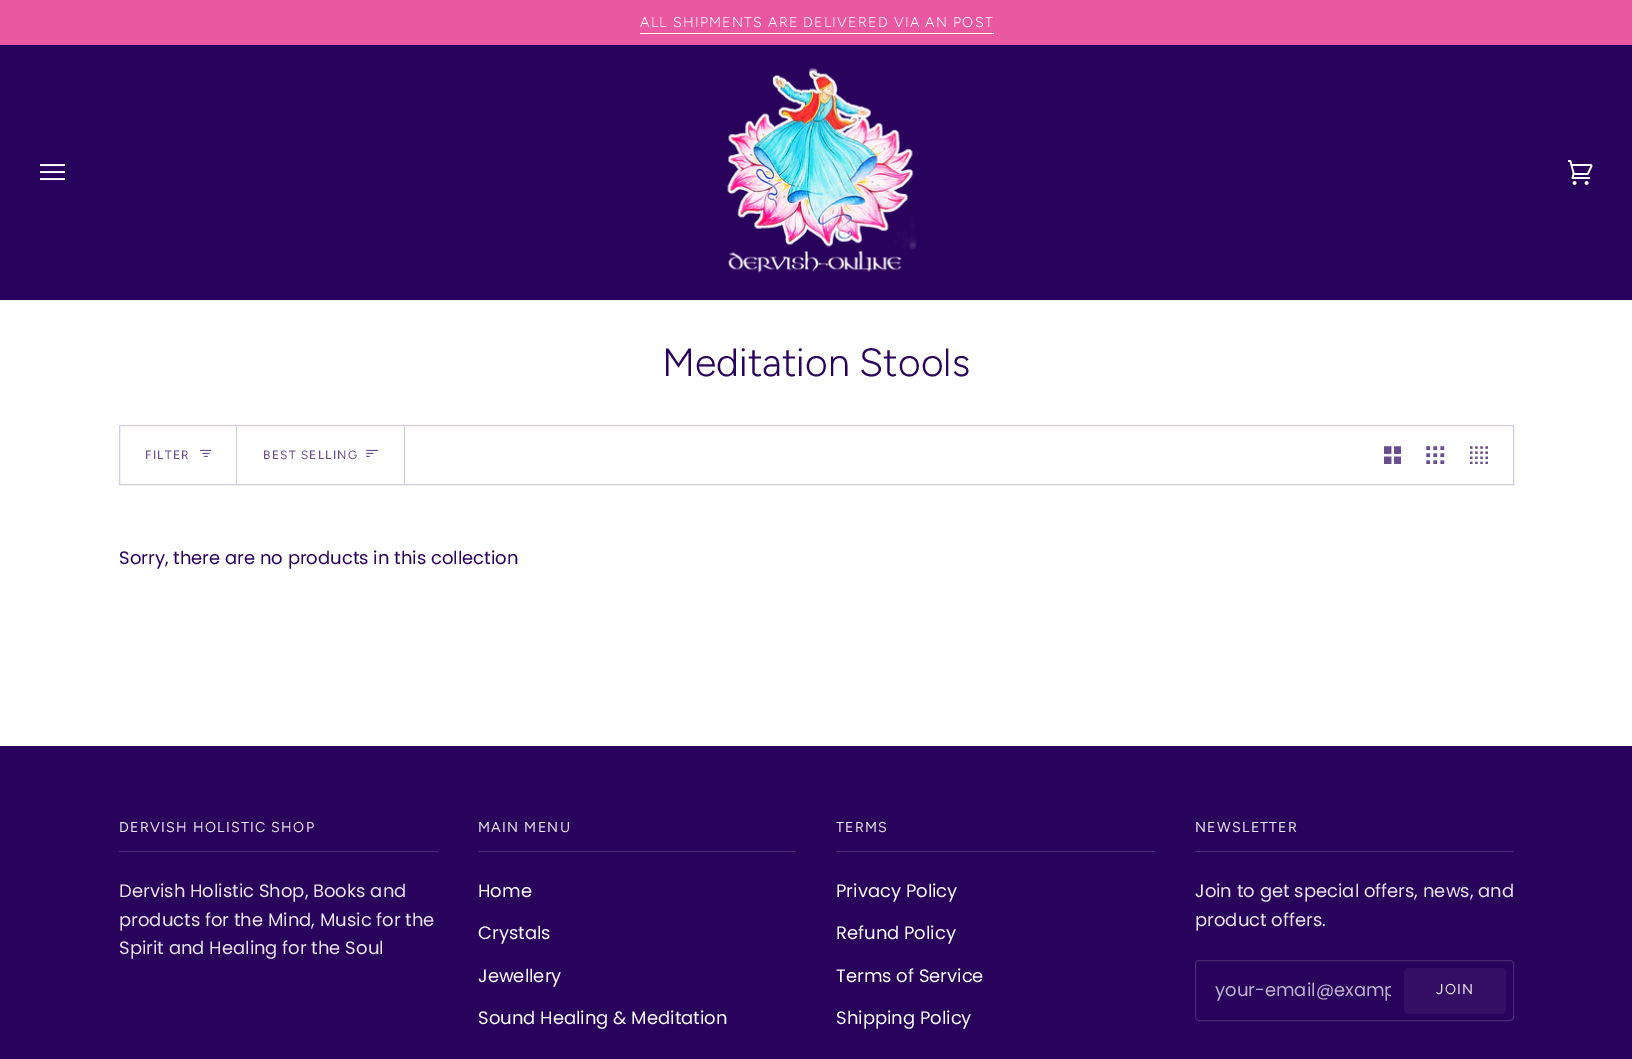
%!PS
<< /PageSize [1632 1059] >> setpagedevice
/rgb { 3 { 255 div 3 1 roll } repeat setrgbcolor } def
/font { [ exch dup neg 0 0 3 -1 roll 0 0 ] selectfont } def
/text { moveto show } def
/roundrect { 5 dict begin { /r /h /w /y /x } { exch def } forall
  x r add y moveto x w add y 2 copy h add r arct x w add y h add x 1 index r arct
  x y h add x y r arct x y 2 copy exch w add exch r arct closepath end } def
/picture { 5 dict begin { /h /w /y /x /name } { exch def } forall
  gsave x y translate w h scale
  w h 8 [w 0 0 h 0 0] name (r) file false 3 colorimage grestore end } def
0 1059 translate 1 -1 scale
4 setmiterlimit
255 255 255 rgb
0 0 1632 1059 rectfill
234 88 162 rgb
0 0 1632 45 rectfill
255 255 255 rgb
640 33 moveto 0 1 rlineto 353 0 rlineto 1 0 rlineto 0 -1 rlineto closepath fill
41 2 92 rgb
0 45 1632 255 rectfill
247 247 247 rgb
0 300 1632 1 rectfill
(img_01.rgb) 40 164 25 17 picture
(img_02.rgb) 727 67 190 206 picture
(img_03.rgb) 1568 160 25 25 picture
212 204 222 rgb
119.5 425.5 1394 59 rectstroke
236 426 1 58 rectfill
(img_04.rgb) 200 449 11 8 picture
404 426 1 58 rectfill
(img_05.rgb) 366 449 13 8 picture
(img_06.rgb) 1384 446 17 18 picture
(img_07.rgb) 1426 446 19 18 picture
(img_08.rgb) 1470 446 18 18 picture
41 2 92 rgb
0 746 1632 313 rectfill
73 40 116 rgb
119 851 319 1 rectfill
478 851 318 1 rectfill
836 851 319 1 rectfill
1195 851 319 1 rectfill
1195.5 960.5 318 60 3.5 roundrect stroke
52 15 100 rgb
1404 968 102 46 4 roundrect fill
/Figtree-Light 14.25 font
255 255 255 rgb
640 27 moveto 1.25 0 (ALL SHIPMENTS ARE DELIVERED VIA AN POST) ashow
/Figtree-Light 39.25 font
41 2 92 rgb
(Meditation Stools) 662 376 text
/Figtree-Regular 12 font
105 78 141 rgb
145 459 moveto 1.25 0 (FILTER) ashow
263 459 moveto 1.25 0 (BEST SELLING) ashow
/Poppins-Regular 18 font
41 2 92 rgb
(Sorry, there are no products in this collection) 119 564 text
/Figtree-Regular 14.25 font
234 230 239 rgb
119 832 moveto 1.25 0 (DERVISH HOLISTIC SHOP) ashow
/Poppins-Regular 18 font
(Dervish Holistic Shop, Books and) 119 897 text
(products for the Mind, Music for the) 119 926 text
(Spirit and Healing for the Soul) 119 954 text
/Figtree-Regular 14.25 font
478 832 moveto 1.25 0 (MAIN MENU) ashow
/Poppins-Regular 18 font
255 255 255 rgb
(Home) 478 897 text
(Crystals) 478 939 text
(Jewellery) 478 982 text
(Sound Healing & Meditation) 478 1024 text
/Figtree-Regular 14.25 font
234 230 239 rgb
836 832 moveto 1.25 0 (TERMS) ashow
/Poppins-Regular 18 font
255 255 255 rgb
(Privacy Policy) 836 897 text
(Refund Policy) 836 939 text
(Terms of Service) 836 982 text
(Shipping Policy) 836 1024 text
/Figtree-Regular 14.25 font
234 230 239 rgb
1195 832 moveto 1.25 0 (NEWSLETTER) ashow
/Poppins-Regular 18 font
(Join to get special offers, news, and) 1195 897 text
(product offers.) 1195 926 text
gsave
1215 978 176 26 rectclip
191 179 206 rgb
(your-email@examp) 1215 996 text
grestore
/Figtree-Regular 14.25 font
1436 994 moveto 1.25 0 (JOIN) ashow
showpage
